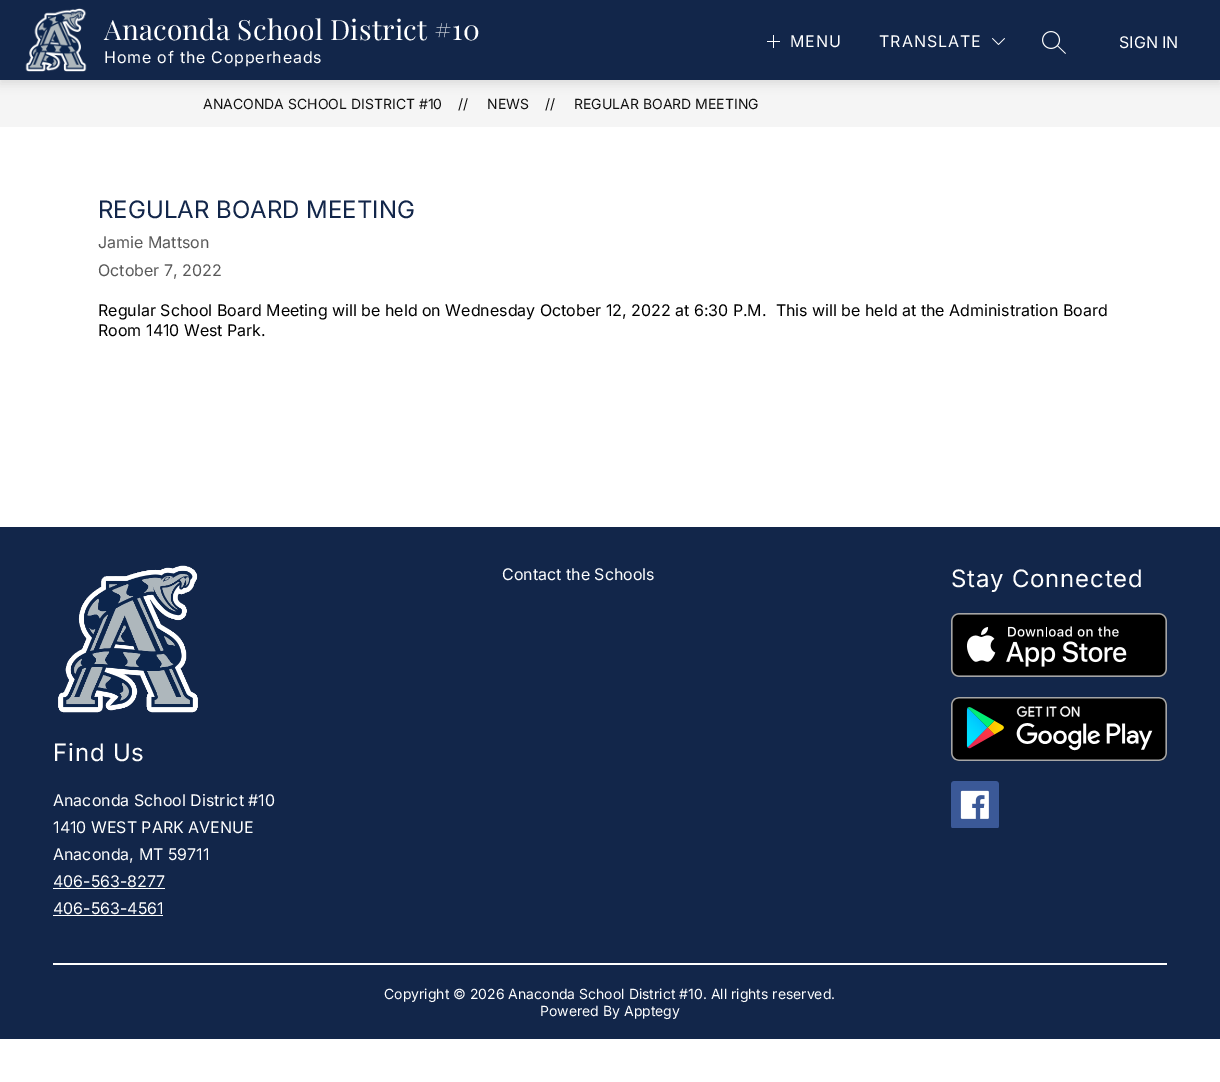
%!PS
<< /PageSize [1220 1082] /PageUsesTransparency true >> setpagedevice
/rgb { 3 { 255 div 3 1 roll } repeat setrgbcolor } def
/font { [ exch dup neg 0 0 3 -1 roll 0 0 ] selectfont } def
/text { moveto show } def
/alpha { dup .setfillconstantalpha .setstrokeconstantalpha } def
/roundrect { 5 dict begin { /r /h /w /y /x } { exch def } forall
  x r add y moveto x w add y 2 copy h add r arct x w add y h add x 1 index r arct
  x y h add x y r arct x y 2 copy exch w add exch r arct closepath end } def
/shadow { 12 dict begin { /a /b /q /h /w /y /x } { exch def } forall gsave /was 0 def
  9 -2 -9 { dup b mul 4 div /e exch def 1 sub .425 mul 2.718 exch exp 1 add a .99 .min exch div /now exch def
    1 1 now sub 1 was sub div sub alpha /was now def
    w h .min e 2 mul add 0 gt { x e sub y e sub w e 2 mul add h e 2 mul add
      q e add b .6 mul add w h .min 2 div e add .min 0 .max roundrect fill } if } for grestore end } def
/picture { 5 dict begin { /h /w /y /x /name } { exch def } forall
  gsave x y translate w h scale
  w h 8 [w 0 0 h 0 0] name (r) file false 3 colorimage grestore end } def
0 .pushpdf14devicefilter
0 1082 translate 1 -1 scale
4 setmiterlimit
255 255 255 rgb
0 0 1220 1082 rectfill
245 245 245 rgb
0 80 1220 47 rectfill
0 0 0 rgb
0 4 1220 80 0 5 0.1 shadow
18 38 74 rgb
0 0 1220 80 rectfill
(img_01.rgb) 25 8 62 64 picture
255 255 255 rgb
773 35 1 13 rectfill
767 41 13 1 rectfill
(img_02.rgb) 992 38 13 7 picture
(img_03.rgb) 1042 31 24 23 picture
18 38 74 rgb
0 527 1220 512 rectfill
(img_04.rgb) 951 613 216 64 picture
(img_05.rgb) 951 697 216 64 picture
(img_06.rgb) 951 781 48 47 picture
(img_07.rgb) 58 565 140 148 picture
255 255 255 rgb
53 888 112 1 rectfill
53 915 110 1 rectfill
53 963 1114 2 rectfill
/PlayfairDisplay-Regular 28 font
104 40 moveto 0.25 0 (Anaconda School District #10) ashow
/Inter-Regular 16 font
104 63 moveto 0.8 0 (Home of the Copperheads) ashow
790 47 moveto 1 0 (MENU) ashow
879 47 moveto 1 0 (TRANSLATE) ashow
(SIGN IN) 1119 48 text
/Inter-Regular 14 font
17 17 17 rgb
(ANACONDA SCHOOL DISTRICT #10) 203 109 text
(//) 458 109 text
(NEWS) 487 109 text
(//) 545 109 text
(REGULAR BOARD MEETING) 574 109 text
/Inter-Regular 24 font
18 38 74 rgb
(REGULAR BOARD MEETING) 98 218 text
/Inter-Regular 16 font
89 89 89 rgb
(Jamie Mattson) 98 248 text
(October 7, 2022) 98 276 text
0 0 0 rgb
(Regular School Board Meeting will be held on Wednesday October 12, 2022 at 6:30 P.M.  This will be held at the Administration Board) 98 316 text
(Room 1410 West Park.) 98 336 text
255 255 255 rgb
(Contact the Schools) 502 580 text
/Inter-Regular 24 font
951 587 moveto 0.8 0 (Stay Connected) ashow
53 761 moveto 0.8 0 (Find Us) ashow
/Inter-Regular 16 font
(Anaconda School District #10) 53 806 text
(1410 WEST PARK AVENUE) 53 833 text
(Anaconda, MT 59711) 53 860 text
(406-563-8277) 53 887 text
(406-563-4561) 53 914 text
/Inter-Regular 14 font
(Copyright © 2026 Anaconda School District #10. All rights reserved.) 384 999 text
(Powered By Apptegy) 540 1016 text
.poppdf14devicefilter showpage
